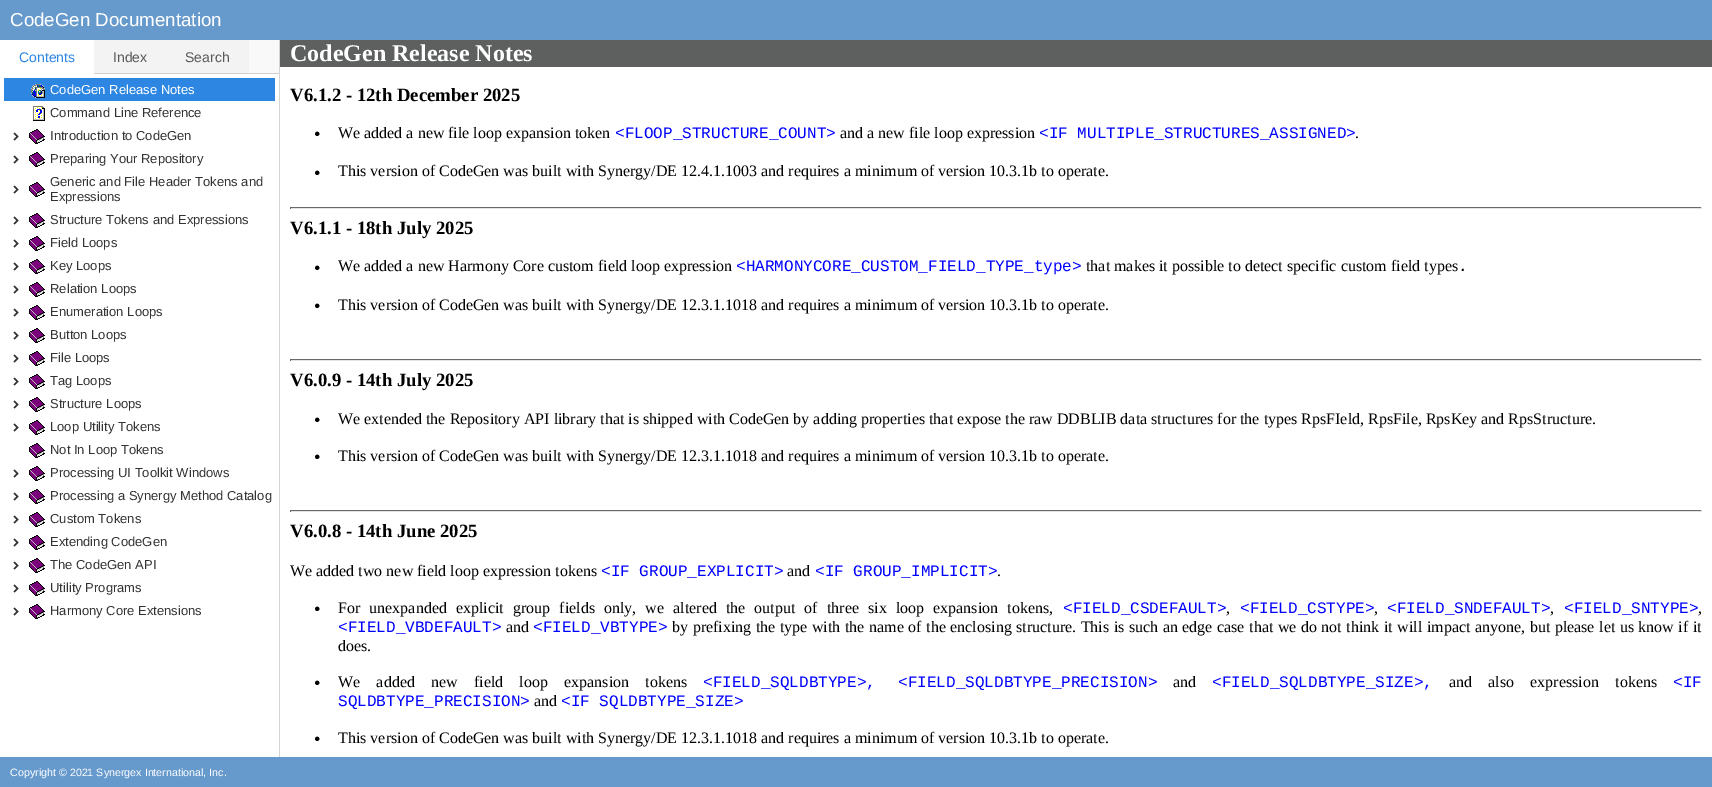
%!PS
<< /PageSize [1712 787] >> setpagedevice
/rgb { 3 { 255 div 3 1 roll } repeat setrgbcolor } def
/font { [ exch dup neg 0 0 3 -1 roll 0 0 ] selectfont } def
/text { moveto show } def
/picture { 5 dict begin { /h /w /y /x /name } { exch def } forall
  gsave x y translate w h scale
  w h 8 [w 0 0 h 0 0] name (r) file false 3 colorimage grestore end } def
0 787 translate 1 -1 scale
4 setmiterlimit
255 255 255 rgb
0 0 1712 787 rectfill
102 153 204 rgb
0 0 1712 40 rectfill
212 212 212 rgb
279 40 1 717 rectfill
249 249 249 rgb
249 40 30 33 rectfill
208 208 208 rgb
94 73 185 1 rectfill
243 243 243 rgb
94 40 155 33 rectfill
45 135 226 rgb
4 78 271 23 rectfill
(img_01.rgb) 31 84 14 14 picture
(img_02.rgb) 33 106 12 15 picture
(img_03.rgb) 13 132 6 9 picture
(img_04.rgb) 29 129 16 15 picture
(img_03.rgb) 13 155 6 9 picture
(img_04.rgb) 29 152 16 15 picture
(img_03.rgb) 13 185 6 9 picture
(img_04.rgb) 29 182 16 15 picture
(img_03.rgb) 13 216 6 9 picture
(img_04.rgb) 29 213 16 15 picture
(img_03.rgb) 13 239 6 9 picture
(img_04.rgb) 29 236 16 15 picture
(img_03.rgb) 13 262 6 9 picture
(img_04.rgb) 29 259 16 15 picture
(img_03.rgb) 13 285 6 9 picture
(img_04.rgb) 29 282 16 15 picture
(img_03.rgb) 13 308 6 9 picture
(img_04.rgb) 29 305 16 15 picture
(img_03.rgb) 13 331 6 9 picture
(img_04.rgb) 29 328 16 15 picture
(img_03.rgb) 13 354 6 9 picture
(img_04.rgb) 29 351 16 15 picture
(img_03.rgb) 13 377 6 9 picture
(img_04.rgb) 29 374 16 15 picture
(img_03.rgb) 13 400 6 9 picture
(img_04.rgb) 29 397 16 15 picture
(img_03.rgb) 13 423 6 9 picture
(img_04.rgb) 29 420 16 15 picture
(img_04.rgb) 29 443 16 15 picture
(img_03.rgb) 13 469 6 9 picture
(img_04.rgb) 29 466 16 15 picture
(img_03.rgb) 13 492 6 9 picture
(img_04.rgb) 29 489 16 15 picture
(img_03.rgb) 13 515 6 9 picture
(img_04.rgb) 29 512 16 15 picture
(img_03.rgb) 13 538 6 9 picture
(img_04.rgb) 29 535 16 15 picture
(img_03.rgb) 13 561 6 9 picture
(img_04.rgb) 29 558 16 15 picture
(img_03.rgb) 13 584 6 9 picture
(img_04.rgb) 29 581 16 15 picture
(img_03.rgb) 13 607 6 9 picture
(img_04.rgb) 29 604 16 15 picture
94 95 95 rgb
280 40 1432 27 rectfill
105 105 105 rgb
290 207 1412 1 rectfill
227 227 227 rgb
1701 207 1 2 rectfill
290 208 1412 1 rectfill
105 105 105 rgb
290 207 1 2 rectfill
290 359 1412 1 rectfill
227 227 227 rgb
1701 359 1 2 rectfill
290 360 1412 1 rectfill
105 105 105 rgb
290 359 1 2 rectfill
290 510 1412 1 rectfill
227 227 227 rgb
1701 510 1 2 rectfill
290 511 1412 1 rectfill
105 105 105 rgb
290 510 1 2 rectfill
102 153 204 rgb
0 757 1712 30 rectfill
/LiberationSans-Regular 18.75 font
255 255 255 rgb
(CodeGen Documentation) 10 26 text
/LiberationSans-Regular 14 font
45 135 226 rgb
(Contents) 19 62 text
89 89 89 rgb
(Index) 113 62 text
(Search) 185 62 text
/LiberationSans-Regular 13 font
255 255 255 rgb
(CodeGen Release Notes) 50 94 text
51 51 51 rgb
(Command Line Reference) 50 117 text
(Introduction to CodeGen) 50 140 text
(Preparing Your Repository) 50 163 text
(Generic and File Header Tokens and) 50 186 text
(Expressions) 50 201 text
(Structure Tokens and Expressions) 50 224 text
(Field Loops) 50 247 text
(Key Loops) 50 270 text
(Relation Loops) 50 293 text
(Enumeration Loops) 50 316 text
(Button Loops) 50 339 text
(File Loops) 50 362 text
(Tag Loops) 50 385 text
(Structure Loops) 50 408 text
(Loop Utility Tokens) 50 431 text
(Not In Loop Tokens) 50 454 text
(Processing UI Toolkit Windows) 50 477 text
(Processing a Synergy Method Catalog) 50 500 text
(Custom Tokens) 50 523 text
(Extending CodeGen) 50 546 text
(The CodeGen API) 50 569 text
(Utility Programs) 50 592 text
(Harmony Core Extensions) 50 615 text
/LiberationSerif-Bold 24 font
255 255 255 rgb
(CodeGen Release Notes) 290 61 text
/LiberationSerif-Bold 18.75 font
0 0 0 rgb
(V6.1.2 - 12th December 2025) 290 101 text
/LiberationSerif-Regular 18.75 font
(•) 314 140 text
/LiberationSerif-Regular 16 font
(We added a new file loop expansion token) 338 138 text
/LiberationMono-Regular 16 font
0 0 255 rgb
(<FLOOP_STRUCTURE_COUNT>) 615 138 text
/LiberationSerif-Regular 16 font
0 0 0 rgb
(and a new file loop expression) 840 138 text
/LiberationMono-Regular 16 font
0 0 255 rgb
(<IF MULTIPLE_STRUCTURES_ASSIGNED>) 1039 138 text
/LiberationSerif-Regular 16 font
0 0 0 rgb
(.) 1355 138 text
/LiberationSerif-Regular 18.75 font
(•) 314 179 text
/LiberationSerif-Regular 16 font
(This version of CodeGen was built with Synergy/DE 12.4.1.1003 and requires a minimum of version 10.3.1b to operate.) 338 176 text
/LiberationSerif-Bold 18.75 font
(V6.1.1 - 18th July 2025) 290 234 text
/LiberationSerif-Regular 18.75 font
(•) 314 274 text
/LiberationSerif-Regular 16 font
(We added a new Harmony Core custom field loop expression) 338 271 text
/LiberationMono-Regular 16 font
0 0 255 rgb
(<HARMONYCORE_CUSTOM_FIELD_TYPE_type>) 736 271 text
/LiberationSerif-Regular 16 font
0 0 0 rgb
(that makes it possible to detect specific custom field types) 1086 271 text
/LiberationMono-Regular 16 font
(.) 1458 271 text
/LiberationSerif-Regular 18.75 font
(•) 314 312 text
/LiberationSerif-Regular 16 font
(This version of CodeGen was built with Synergy/DE 12.3.1.1018 and requires a minimum of version 10.3.1b to operate.) 338 310 text
/LiberationSerif-Bold 18.75 font
(V6.0.9 - 14th July 2025) 290 386 text
/LiberationSerif-Regular 18.75 font
(•) 314 426 text
/LiberationSerif-Regular 16 font
(We extended the Repository API library that is shipped with CodeGen by adding properties that expose the raw DDBLIB data structures for the types RpsFIeld, RpsFile, RpsKey and RpsStructure.) 338 424 text
/LiberationSerif-Regular 18.75 font
(•) 314 463 text
/LiberationSerif-Regular 16 font
(This version of CodeGen was built with Synergy/DE 12.3.1.1018 and requires a minimum of version 10.3.1b to operate.) 338 461 text
/LiberationSerif-Bold 18.75 font
(V6.0.8 - 14th June 2025) 290 537 text
/LiberationSerif-Regular 16 font
(We added two new field loop expression tokens) 290 576 text
/LiberationMono-Regular 16 font
0 0 255 rgb
(<IF GROUP_EXPLICIT>) 601 576 text
/LiberationSerif-Regular 16 font
0 0 0 rgb
(and) 787 576 text
/LiberationMono-Regular 16 font
0 0 255 rgb
(<IF GROUP_IMPLICIT>) 815 576 text
/LiberationSerif-Regular 16 font
0 0 0 rgb
(.) 997 576 text
/LiberationSerif-Regular 18.75 font
(•) 314 615 text
/LiberationSerif-Regular 16 font
338 613 moveto 5.1 0 32 (For unexpanded explicit group fields only, we altered the output of three six loop expansion tokens,) widthshow
/LiberationMono-Regular 16 font
0 0 255 rgb
(<FIELD_CSDEFAULT>) 1063 613 text
(<FIELD_CSTYPE>) 1240 613 text
(<FIELD_SNDEFAULT>) 1387 613 text
(<FIELD_SNTYPE>) 1564 613 text
/LiberationSerif-Regular 16 font
0 0 0 rgb
(,) 1226 613 text
(,) 1374 613 text
(,) 1550 613 text
(,) 1698 613 text
/LiberationMono-Regular 16 font
0 0 255 rgb
(<FIELD_VBDEFAULT>) 338 632 text
/LiberationSerif-Regular 16 font
0 0 0 rgb
(and) 506 632 text
/LiberationMono-Regular 16 font
0 0 255 rgb
(<FIELD_VBTYPE>) 533 632 text
/LiberationSerif-Regular 16 font
0 0 0 rgb
672 632 moveto 0.55 0 32 (by prefixing the type with the name of the enclosing structure. This is such an edge case that we do not think it will impact anyone, but please let us know if it) widthshow
(does.) 338 651 text
/LiberationSerif-Regular 18.75 font
(•) 314 689 text
/LiberationSerif-Regular 16 font
338 687 moveto 12.25 0 32 (We added new field loop expansion tokens) widthshow
/LiberationMono-Regular 16 font
0 0 255 rgb
(<FIELD_SQLDBTYPE>,) 703 687 text
(<FIELD_SQLDBTYPE_PRECISION>) 898 687 text
/LiberationSerif-Regular 16 font
0 0 0 rgb
(and) 1173 687 text
/LiberationMono-Regular 16 font
0 0 255 rgb
(<FIELD_SQLDBTYPE_SIZE>,) 1212 687 text
/LiberationSerif-Regular 16 font
0 0 0 rgb
1449 687 moveto 12.25 0 32 (and also expression tokens) widthshow
/LiberationMono-Regular 16 font
0 0 255 rgb
(<IF) 1673 687 text
(SQLDBTYPE_PRECISION>) 338 706 text
/LiberationSerif-Regular 16 font
0 0 0 rgb
(and) 534 706 text
/LiberationMono-Regular 16 font
0 0 255 rgb
(<IF SQLDBTYPE_SIZE>) 561 706 text
/LiberationSerif-Regular 18.75 font
0 0 0 rgb
(•) 314 745 text
/LiberationSerif-Regular 16 font
(This version of CodeGen was built with Synergy/DE 12.3.1.1018 and requires a minimum of version 10.3.1b to operate.) 338 743 text
/LiberationSans-Regular 10.7 font
255 255 255 rgb
(Copyright © 2021 Synergex International, Inc.) 10 776 text
showpage
